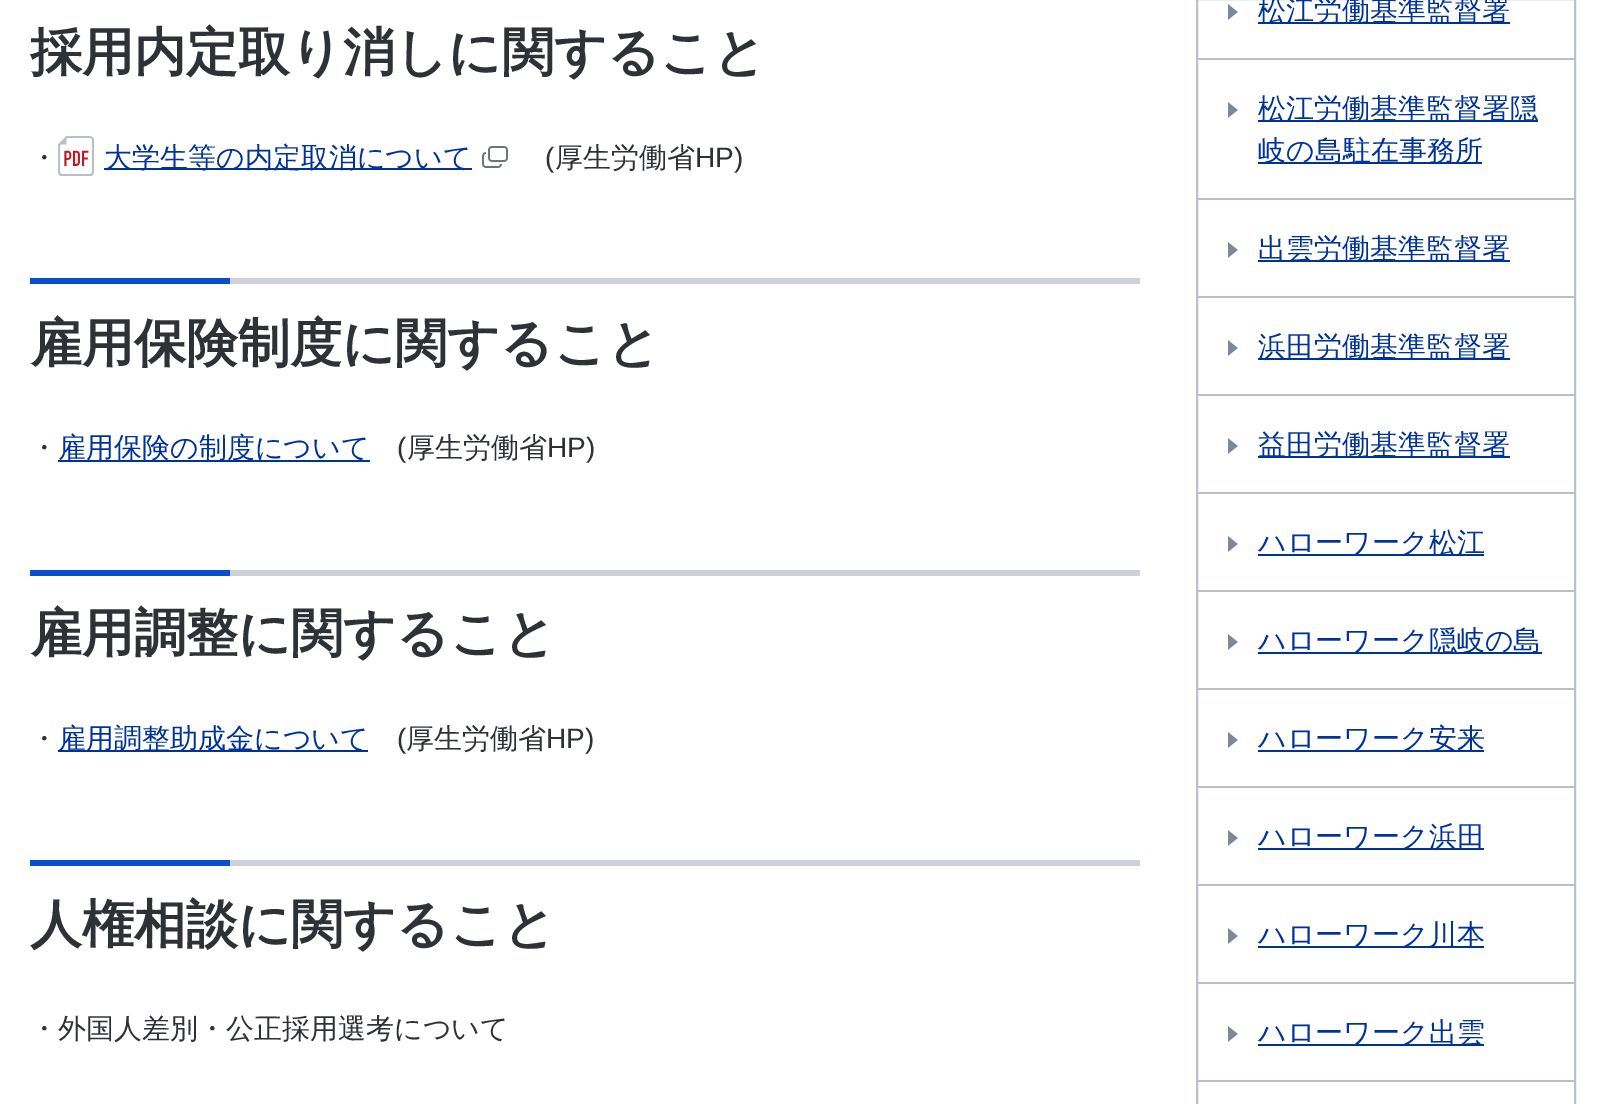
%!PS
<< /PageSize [1605 1104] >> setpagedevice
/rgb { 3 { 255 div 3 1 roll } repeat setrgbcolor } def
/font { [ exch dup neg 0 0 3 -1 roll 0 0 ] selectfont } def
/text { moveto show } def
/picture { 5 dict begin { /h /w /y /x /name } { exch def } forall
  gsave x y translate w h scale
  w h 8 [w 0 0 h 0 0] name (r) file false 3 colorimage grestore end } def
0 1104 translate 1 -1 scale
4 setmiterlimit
255 255 255 rgb
0 0 1605 1104 rectfill
(img_01.rgb) 58 136 36 40 picture
0 51 153 rgb
104 168 368 2 rectfill
(img_02.rgb) 482 146 26 22 picture
206 209 217 rgb
230 278 910 6 rectfill
6 80 203 rgb
30 278 200 6 rectfill
0 51 153 rgb
58 460 312 2 rectfill
206 209 217 rgb
230 570 910 6 rectfill
6 80 203 rgb
30 570 200 6 rectfill
0 51 153 rgb
58 750 310 2 rectfill
206 209 217 rgb
230 860 910 6 rectfill
6 80 203 rgb
30 860 200 6 rectfill
187 191 202 rgb
2 setlinewidth
1197 -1 378 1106 rectstroke
(img_03.rgb) 1228 4 10 16 picture
0 51 153 rgb
1258 22 252 2 rectfill
187 191 202 rgb
1198 58 376 2 rectfill
(img_03.rgb) 1228 102 10 16 picture
0 51 153 rgb
1258 120 280 2 rectfill
1258 162 224 2 rectfill
187 191 202 rgb
1198 198 376 2 rectfill
(img_03.rgb) 1228 242 10 16 picture
0 51 153 rgb
1258 260 252 2 rectfill
187 191 202 rgb
1198 296 376 2 rectfill
(img_03.rgb) 1228 340 10 16 picture
0 51 153 rgb
1258 358 252 2 rectfill
187 191 202 rgb
1198 394 376 2 rectfill
(img_03.rgb) 1228 438 10 16 picture
0 51 153 rgb
1258 456 252 2 rectfill
187 191 202 rgb
1198 492 376 2 rectfill
(img_03.rgb) 1228 536 10 16 picture
0 51 153 rgb
1258 554 226 2 rectfill
187 191 202 rgb
1198 590 376 2 rectfill
(img_03.rgb) 1228 634 10 16 picture
0 51 153 rgb
1258 652 284 2 rectfill
187 191 202 rgb
1198 688 376 2 rectfill
(img_03.rgb) 1228 732 10 16 picture
0 51 153 rgb
1258 750 226 2 rectfill
187 191 202 rgb
1198 786 376 2 rectfill
(img_03.rgb) 1228 830 10 16 picture
0 51 153 rgb
1258 848 226 2 rectfill
187 191 202 rgb
1198 884 376 2 rectfill
(img_03.rgb) 1228 928 10 16 picture
0 51 153 rgb
1258 946 226 2 rectfill
187 191 202 rgb
1198 982 376 2 rectfill
(img_03.rgb) 1228 1026 10 16 picture
0 51 153 rgb
1258 1044 226 2 rectfill
187 191 202 rgb
1198 1080 376 2 rectfill
/WenQuanYiZenHei-Bold 52 font
46 49 54 rgb
(採用内定取り消しに関すること) 30 70 text
/WenQuanYiZenHei-Medium 28 font
(・) 30 167 text
0 51 153 rgb
(大学生等の内定取消について) 104 167 text
/LiberationSans-Regular 28 font
46 49 54 rgb
(\() 545 167 text
/WenQuanYiZenHei-Medium 28 font
(厚生労働省) 555 167 text
/LiberationSans-Regular 28 font
(HP\)) 695 167 text
/WenQuanYiZenHei-Bold 52 font
(雇用保険制度に関すること) 30 361 text
/WenQuanYiZenHei-Medium 28 font
(・) 30 457 text
0 51 153 rgb
(雇用保険の制度について) 58 457 text
/LiberationSans-Regular 28 font
46 49 54 rgb
(\() 397 457 text
/WenQuanYiZenHei-Medium 28 font
(厚生労働省) 407 457 text
/LiberationSans-Regular 28 font
(HP\)) 547 457 text
/WenQuanYiZenHei-Bold 52 font
(雇用調整に関すること) 30 651 text
/WenQuanYiZenHei-Medium 28 font
(・) 30 748 text
0 51 153 rgb
(雇用調整助成金について) 58 748 text
/LiberationSans-Regular 28 font
46 49 54 rgb
(\() 397 748 text
/WenQuanYiZenHei-Medium 28 font
(厚生労働省) 406 748 text
/LiberationSans-Regular 28 font
(HP\)) 546 748 text
/WenQuanYiZenHei-Bold 52 font
(人権相談に関すること) 30 942 text
/WenQuanYiZenHei-Medium 28 font
(・外国人差別・公正採用選考について) 30 1038 text
0 51 153 rgb
(松江労働基準監督署) 1258 20 text
(松江労働基準監督署隠) 1258 118 text
(岐の島駐在事務所) 1258 160 text
(出雲労働基準監督署) 1258 258 text
(浜田労働基準監督署) 1258 356 text
(益田労働基準監督署) 1258 454 text
(ハローワーク松江) 1258 552 text
(ハローワーク隠岐の島) 1258 650 text
(ハローワーク安来) 1258 748 text
(ハローワーク浜田) 1258 846 text
(ハローワーク川本) 1258 944 text
(ハローワーク出雲) 1258 1042 text
showpage
